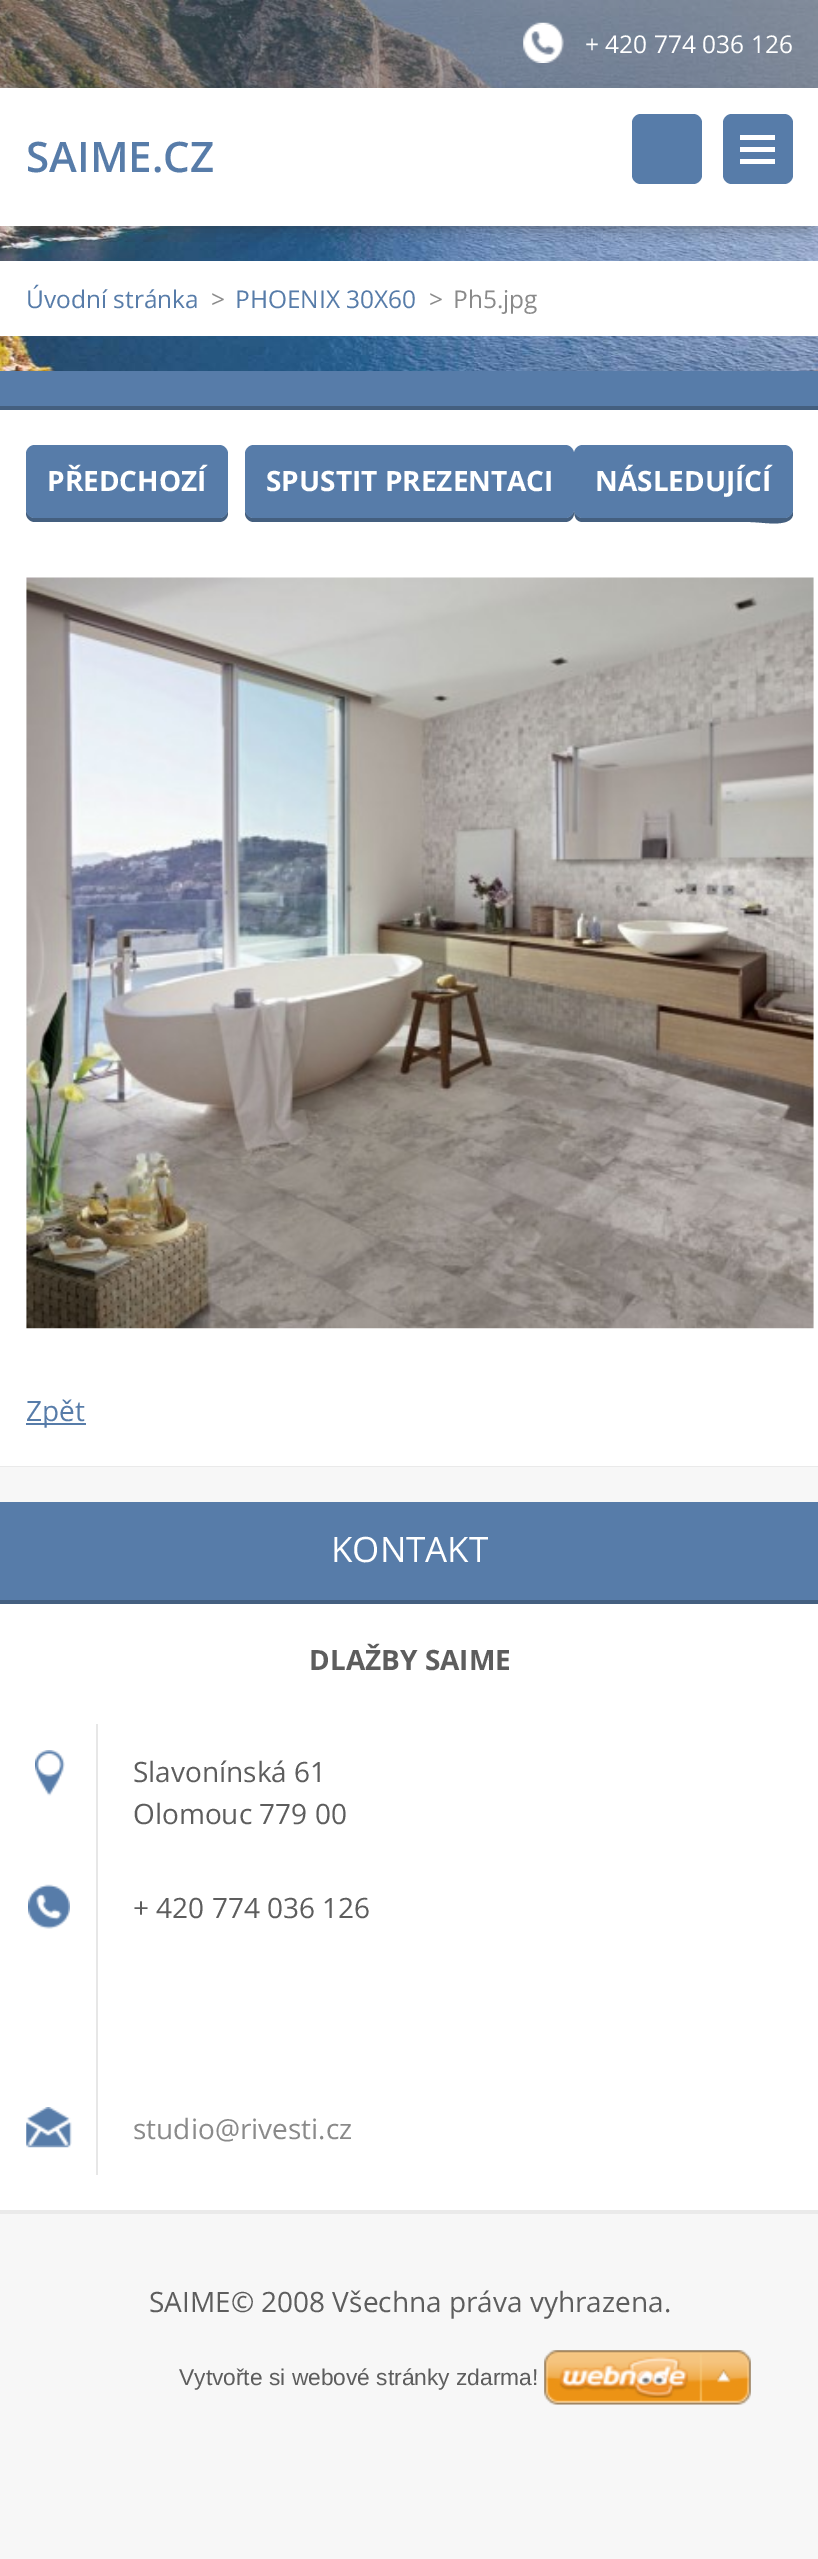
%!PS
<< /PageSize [818 2559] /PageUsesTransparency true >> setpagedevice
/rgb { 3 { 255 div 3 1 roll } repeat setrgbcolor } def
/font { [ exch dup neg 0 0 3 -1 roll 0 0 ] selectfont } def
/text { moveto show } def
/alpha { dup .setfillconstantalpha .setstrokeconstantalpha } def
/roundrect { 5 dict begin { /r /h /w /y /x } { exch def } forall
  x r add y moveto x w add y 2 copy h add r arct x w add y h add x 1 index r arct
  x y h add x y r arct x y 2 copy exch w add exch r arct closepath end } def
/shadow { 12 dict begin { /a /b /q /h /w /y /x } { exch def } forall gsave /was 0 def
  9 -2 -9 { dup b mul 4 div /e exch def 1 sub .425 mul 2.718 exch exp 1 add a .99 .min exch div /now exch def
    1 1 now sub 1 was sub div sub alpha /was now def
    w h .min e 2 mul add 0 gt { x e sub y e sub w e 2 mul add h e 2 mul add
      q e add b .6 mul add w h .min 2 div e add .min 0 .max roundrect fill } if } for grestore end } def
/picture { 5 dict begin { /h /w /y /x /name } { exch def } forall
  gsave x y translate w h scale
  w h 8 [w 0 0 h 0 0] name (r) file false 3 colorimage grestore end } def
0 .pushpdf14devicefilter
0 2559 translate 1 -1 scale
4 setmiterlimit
247 247 247 rgb
0 0 818 2559 rectfill
(img_01.rgb) 0 0 818 371 picture
0.4 alpha
53 53 53 rgb
0 0 818 88 rectfill
1 alpha
(img_02.rgb) 523 22 41 41 picture
11 105 798 117 0 9 1 shadow
255 255 255 rgb
0 88 818 138 rectfill
87 124 169 rgb
632 114 70 70 9 roundrect fill
723 114 70 70 9 roundrect fill
255 255 255 rgb
740 135 35 5 rectfill
740 147 35 5 rectfill
740 159 35 5 rectfill
0 261 818 75 rectfill
0 410 818 1056 rectfill
87 124 169 rgb
0 371 818 35 rectfill
68 95 127 rgb
0 406 818 4 rectfill
26 455 moveto 0 58 rlineto 0 5 4 9 9 9 rcurveto 184 0 rlineto 5 0 9 -4 9 -9 rcurveto 0 -56 rlineto 0 -3 rlineto 0 55 rlineto 0 5 -4 9 -9 9 rcurveto -184 0 rlineto -5 0 -9 -4 -9 -9 rcurveto closepath fill
87 124 169 rgb
26 445 202 73 9 roundrect fill
68 95 127 rgb
245 509 moveto 0 4 rlineto 0 5 4 9 9 9 rcurveto 311 0 rlineto 5 0 9 -4 9 -9 rcurveto 0 -4 rlineto 0 5 -4 9 -9 9 rcurveto -311 0 rlineto -5 0 -9 -4 -9 -9 rcurveto closepath fill
87 124 169 rgb
245 445 329 73 9 roundrect fill
68 95 127 rgb
574 509 moveto 0 6 1 13 9 13 rcurveto 167 0 rlineto 13 0 40 6 43 -7 rcurveto 0 -60 rlineto 0 54 rlineto 0 5 -4 9 -9 9 rcurveto -201 0 rlineto -5 0 -9 -4 -9 -9 rcurveto closepath fill
87 124 169 rgb
574 445 219 73 9 roundrect fill
(img_03.rgb) 26 577 788 752 picture
234 234 234 rgb
0 1466 818 1 rectfill
87 124 169 rgb
26 1423 60 2 rectfill
234 234 234 rgb
0 2210 818 4 rectfill
255 255 255 rgb
0 1604 818 606 rectfill
87 124 169 rgb
0 1502 818 98 rectfill
68 95 127 rgb
0 1600 818 4 rectfill
(img_04.rgb) 35 1750 30 46 picture
231 231 231 rgb
96 1724 2 451 rectfill
(img_05.rgb) 28 1884 42 45 picture
(img_06.rgb) 26 2107 46 41 picture
(img_07.rgb) 544 2350 207 55 picture
/OpenSans-Regular 24.5 font
255 255 255 rgb
(+ 420 774 036 126) 585 53 text
/OpenSans-SemiBold 42 font
87 124 169 rgb
(SAIME.CZ) 26 172 text
/OpenSans-Regular 24.5 font
(Úvodní stránka) 26 308 text
138 138 138 rgb
(>) 211 308 text
87 124 169 rgb
(PHOENIX 30X60) 235 308 text
138 138 138 rgb
(>) 429 308 text
(Ph5.jpg) 453 308 text
/OpenSans-Bold 28 font
255 255 255 rgb
(PŘEDCHOZÍ) 47 491 text
(SPUSTIT PREZENTACI) 266 491 text
(NÁSLEDUJÍCÍ) 595 491 text
/OpenSans-Regular 28 font
87 124 169 rgb
(Zpět) 26 1421 text
/OpenSans-Regular 35 font
255 255 255 rgb
(KONTAKT) 331 1562 text
/OpenSans-Bold 28 font
93 93 93 rgb
(DLAŽBY SAIME) 309 1670 text
/OpenSans-Regular 28 font
(Slavonínská 61) 133 1782 text
(Olomouc 779 00) 133 1824 text
(+ 420 774 036 126) 133 1918 text
138 138 138 rgb
(studio@rivesti.cz) 133 2139 text
93 93 93 rgb
(SAIME© 2008 Všechna práva vyhrazena.) 149 2312 text
/LiberationSans-Regular 22.75 font
(Vytvořte si webové stránky zdarma!) 179 2385 text
.poppdf14devicefilter showpage
